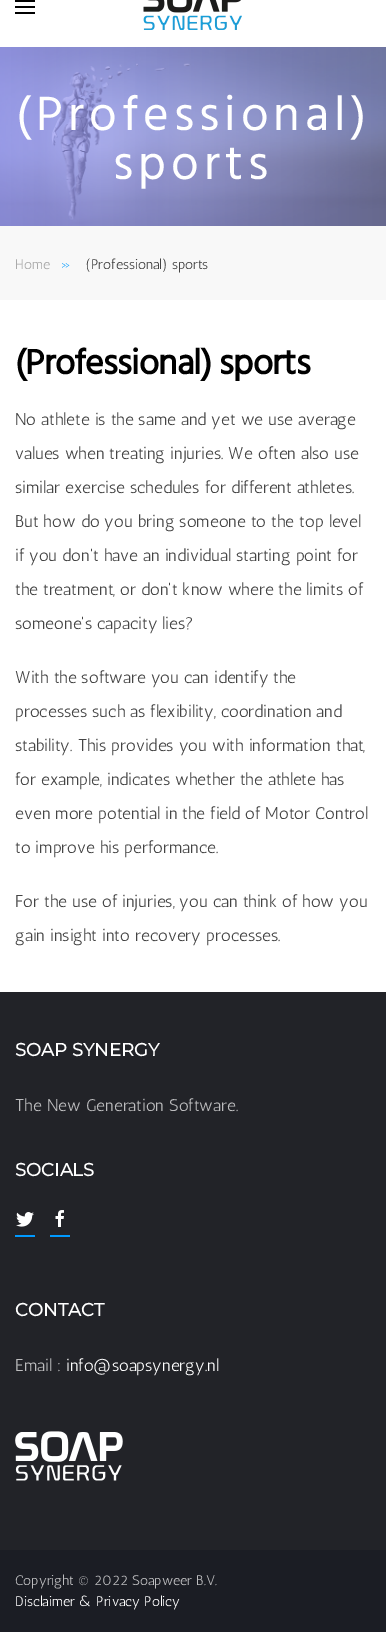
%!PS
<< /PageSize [386 1632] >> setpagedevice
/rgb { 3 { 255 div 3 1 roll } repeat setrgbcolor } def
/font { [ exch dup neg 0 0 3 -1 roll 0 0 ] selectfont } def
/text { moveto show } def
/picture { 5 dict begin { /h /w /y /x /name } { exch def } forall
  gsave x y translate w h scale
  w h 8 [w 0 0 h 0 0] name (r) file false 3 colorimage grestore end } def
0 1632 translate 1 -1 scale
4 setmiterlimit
255 255 255 rgb
0 0 386 1632 rectfill
0 0 0 rgb
15 0 20 2 rectfill
15 6 20 2 rectfill
15 12 20 2 rectfill
(img_01.rgb) 143 0 99 30 picture
(img_02.rgb) 0 47 386 179 picture
248 248 248 rgb
0 226 386 74 rectfill
34 35 40 rgb
0 992 386 558 rectfill
0 153 255 rgb
15 1235 20 2 rectfill
(img_03.rgb) 16 1212 18 15 picture
50 1235 20 2 rectfill
(img_04.rgb) 55 1210 9 17 picture
(img_05.rgb) 15 1431 108 50 picture
27 29 36 rgb
0 1550 386 82 rectfill
/HindVadodara-Regular 49.25 font
255 255 255 rgb
16 130 moveto 5 0 (\(Professional\)) ashow
113 179 moveto 5 0 (sports) ashow
/Antic-Regular 14 font
170 170 170 rgb
(Home) 15 269 text
0 153 255 rgb
(») 61 269 text
68 68 68 rgb
(\(Professional\) sports) 86 269 text
/HindVadodara-Bold 35.75 font
0 0 0 rgb
15 374 moveto -0.75 0 (\(Professional\) sports) ashow
/Antic-Regular 17 font
68 68 68 rgb
(No athlete is the same and yet we use average) 15 425 text
(values when treating injuries. We often also use) 15 459 text
(similar exercise schedules for different athletes.) 15 493 text
(But how do you bring someone to the top level) 15 527 text
(if you don't have an individual starting point for) 15 561 text
(the treatment, or don't know where the limits of) 15 595 text
(someone's capacity lies?) 15 629 text
(With the software you can identify the) 15 683 text
(processes such as flexibility, coordination and) 15 717 text
(stability. This provides you with information that,) 15 751 text
(for example, indicates whether the athlete has) 15 785 text
(even more potential in the field of Motor Control) 15 819 text
(to improve his performance.) 15 853 text
(For the use of injuries, you can think of how you) 15 907 text
(gain insight into recovery processes.) 15 941 text
/Montserrat-Bold 18 font
255 255 255 rgb
(SOAP SYNERGY) 15 1056 text
/Antic-Regular 17 font
189 189 191 rgb
(The New Generation Software.) 15 1111 text
/Montserrat-Bold 18 font
255 255 255 rgb
(SOCIALS) 15 1176 text
(CONTACT) 15 1316 text
/Antic-Regular 17 font
189 189 191 rgb
(Email :) 15 1371 text
255 255 255 rgb
(info@soapsynergy.nl) 66 1371 text
/Antic-Regular 14 font
189 189 191 rgb
(Copyright © 2022 Soapweer B.V.) 15 1585 text
255 255 255 rgb
(Disclaimer & Privacy Policy) 15 1606 text
showpage
